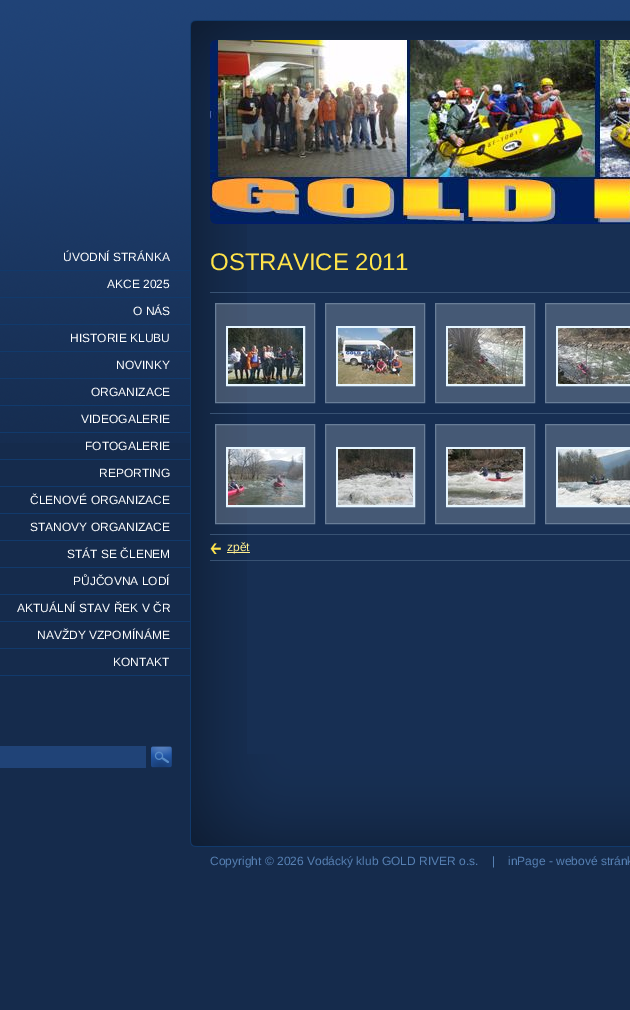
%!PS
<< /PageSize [630 1010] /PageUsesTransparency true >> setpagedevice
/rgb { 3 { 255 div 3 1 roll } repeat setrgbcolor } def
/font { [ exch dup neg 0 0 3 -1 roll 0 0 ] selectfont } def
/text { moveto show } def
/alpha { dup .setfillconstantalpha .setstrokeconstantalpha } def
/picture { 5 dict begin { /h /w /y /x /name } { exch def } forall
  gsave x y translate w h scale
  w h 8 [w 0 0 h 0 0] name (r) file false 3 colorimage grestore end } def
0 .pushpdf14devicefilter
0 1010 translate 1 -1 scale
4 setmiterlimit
21 43 76 rgb
0 0 630 1010 rectfill
(img_01.rgb) 0 0 630 443 picture
(img_06.rgb) 190 121 57 633 picture
(img_07.rgb) 190 20 440 101 picture
(img_02.rgb) 210 40 420 184 picture
(img_03.rgb) 210 40 6 5 picture
(img_04.rgb) 210 218 7 6 picture
17 58 108 rgb
0 270 190 1 rectfill
0 297 190 1 rectfill
0 324 190 1 rectfill
0 351 190 1 rectfill
0 378 190 1 rectfill
0 405 190 1 rectfill
0 432 190 1 rectfill
0 459 190 1 rectfill
0 486 190 1 rectfill
0 513 190 1 rectfill
0 540 190 1 rectfill
0 567 190 1 rectfill
0 594 190 1 rectfill
0 621 190 1 rectfill
0 648 190 1 rectfill
0 675 190 1 rectfill
32 67 119 rgb
0 746 146 22 rectfill
(img_05.rgb) 151 746 21 22 picture
23 47 83 rgb
247 224 383 530 rectfill
(img_08.rgb) 190 754 440 93 picture
56 82 115 rgb
210 292 420 1 rectfill
0.2 alpha
255 255 255 rgb
215.5 303.5 moveto 99 0 rlineto 0 99 rlineto -99 0 rlineto closepath fill
1 alpha
105 126 152 rgb
215.5 303.5 moveto 99 0 rlineto 0 99 rlineto -99 0 rlineto closepath stroke
229 245 255 rgb
2 setlinewidth
227 327 77 58 rectstroke
(img_09.rgb) 228 328 75 56 picture
69 89 117 rgb
325.5 303.5 moveto 99 0 rlineto 0 99 rlineto -99 0 rlineto closepath gsave fill grestore
105 126 152 rgb
1 setlinewidth
stroke
229 245 255 rgb
2 setlinewidth
337 327 77 58 rectstroke
(img_10.rgb) 338 328 75 56 picture
69 89 117 rgb
435.5 303.5 moveto 99 0 rlineto 0 99 rlineto -99 0 rlineto closepath gsave fill grestore
105 126 152 rgb
1 setlinewidth
stroke
229 245 255 rgb
2 setlinewidth
447 327 77 58 rectstroke
(img_11.rgb) 448 328 75 56 picture
69 89 117 rgb
545.5 303.5 moveto 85 0 rlineto 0 99 rlineto -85 0 rlineto closepath gsave fill grestore
105 126 152 rgb
1 setlinewidth
stroke
229 245 255 rgb
2 setlinewidth
557 327 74 58 rectstroke
(img_12.rgb) 558 328 72 56 picture
56 82 115 rgb
210 413 420 1 rectfill
0.2 alpha
255 255 255 rgb
215.5 424.5 moveto 99 0 rlineto 0 99 rlineto -99 0 rlineto closepath fill
1 alpha
105 126 152 rgb
1 setlinewidth
215.5 424.5 moveto 99 0 rlineto 0 99 rlineto -99 0 rlineto closepath stroke
229 245 255 rgb
2 setlinewidth
227 448 77 58 rectstroke
(img_13.rgb) 228 449 75 56 picture
69 89 117 rgb
325.5 424.5 moveto 99 0 rlineto 0 99 rlineto -99 0 rlineto closepath gsave fill grestore
105 126 152 rgb
1 setlinewidth
stroke
229 245 255 rgb
2 setlinewidth
337 448 77 58 rectstroke
(img_14.rgb) 338 449 75 56 picture
69 89 117 rgb
435.5 424.5 moveto 99 0 rlineto 0 99 rlineto -99 0 rlineto closepath gsave fill grestore
105 126 152 rgb
1 setlinewidth
stroke
229 245 255 rgb
2 setlinewidth
447 448 77 58 rectstroke
(img_15.rgb) 448 449 75 56 picture
69 89 117 rgb
545.5 424.5 moveto 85 0 rlineto 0 99 rlineto -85 0 rlineto closepath gsave fill grestore
105 126 152 rgb
1 setlinewidth
stroke
229 245 255 rgb
2 setlinewidth
557 448 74 58 rectstroke
(img_16.rgb) 558 449 72 56 picture
56 82 115 rgb
210 534 420 1 rectfill
210 560 420 1 rectfill
(img_17.rgb) 210 543 11 11 picture
255 238 142 rgb
227 552 23 1 rectfill
/LiberationSans-Regular 12 font
255 255 255 rgb
(ÚVODNÍ STRÁNKA) 63 261 text
(AKCE 2025) 107 288 text
(O NÁS) 133 315 text
(HISTORIE KLUBU) 70 342 text
(NOVINKY) 116 369 text
(ORGANIZACE) 91 396 text
(VIDEOGALERIE) 81 423 text
(FOTOGALERIE) 85 450 text
(REPORTING) 99 477 text
(ČLENOVÉ ORGANIZACE) 30 504 text
(STANOVY ORGANIZACE) 30 531 text
(STÁT SE ČLENEM) 67 558 text
(PŮJČOVNA LODÍ) 73 585 text
(AKTUÁLNÍ STAV ŘEK V ČR) 17 612 text
(NAVŽDY VZPOMÍNÁME) 37 639 text
(KONTAKT) 113 666 text
/LiberationSans-Regular 24 font
255 227 73 rgb
(OSTRAVICE 2011) 210 270 text
/LiberationSans-Regular 12 font
255 238 142 rgb
(zpět) 227 551 text
86 128 179 rgb
(Copyright © 2026 Vodácký klub GOLD RIVER o.s.) 210 865 text
(|) 492 865 text
(inPage - webové stránk) 508 865 text
.poppdf14devicefilter showpage
